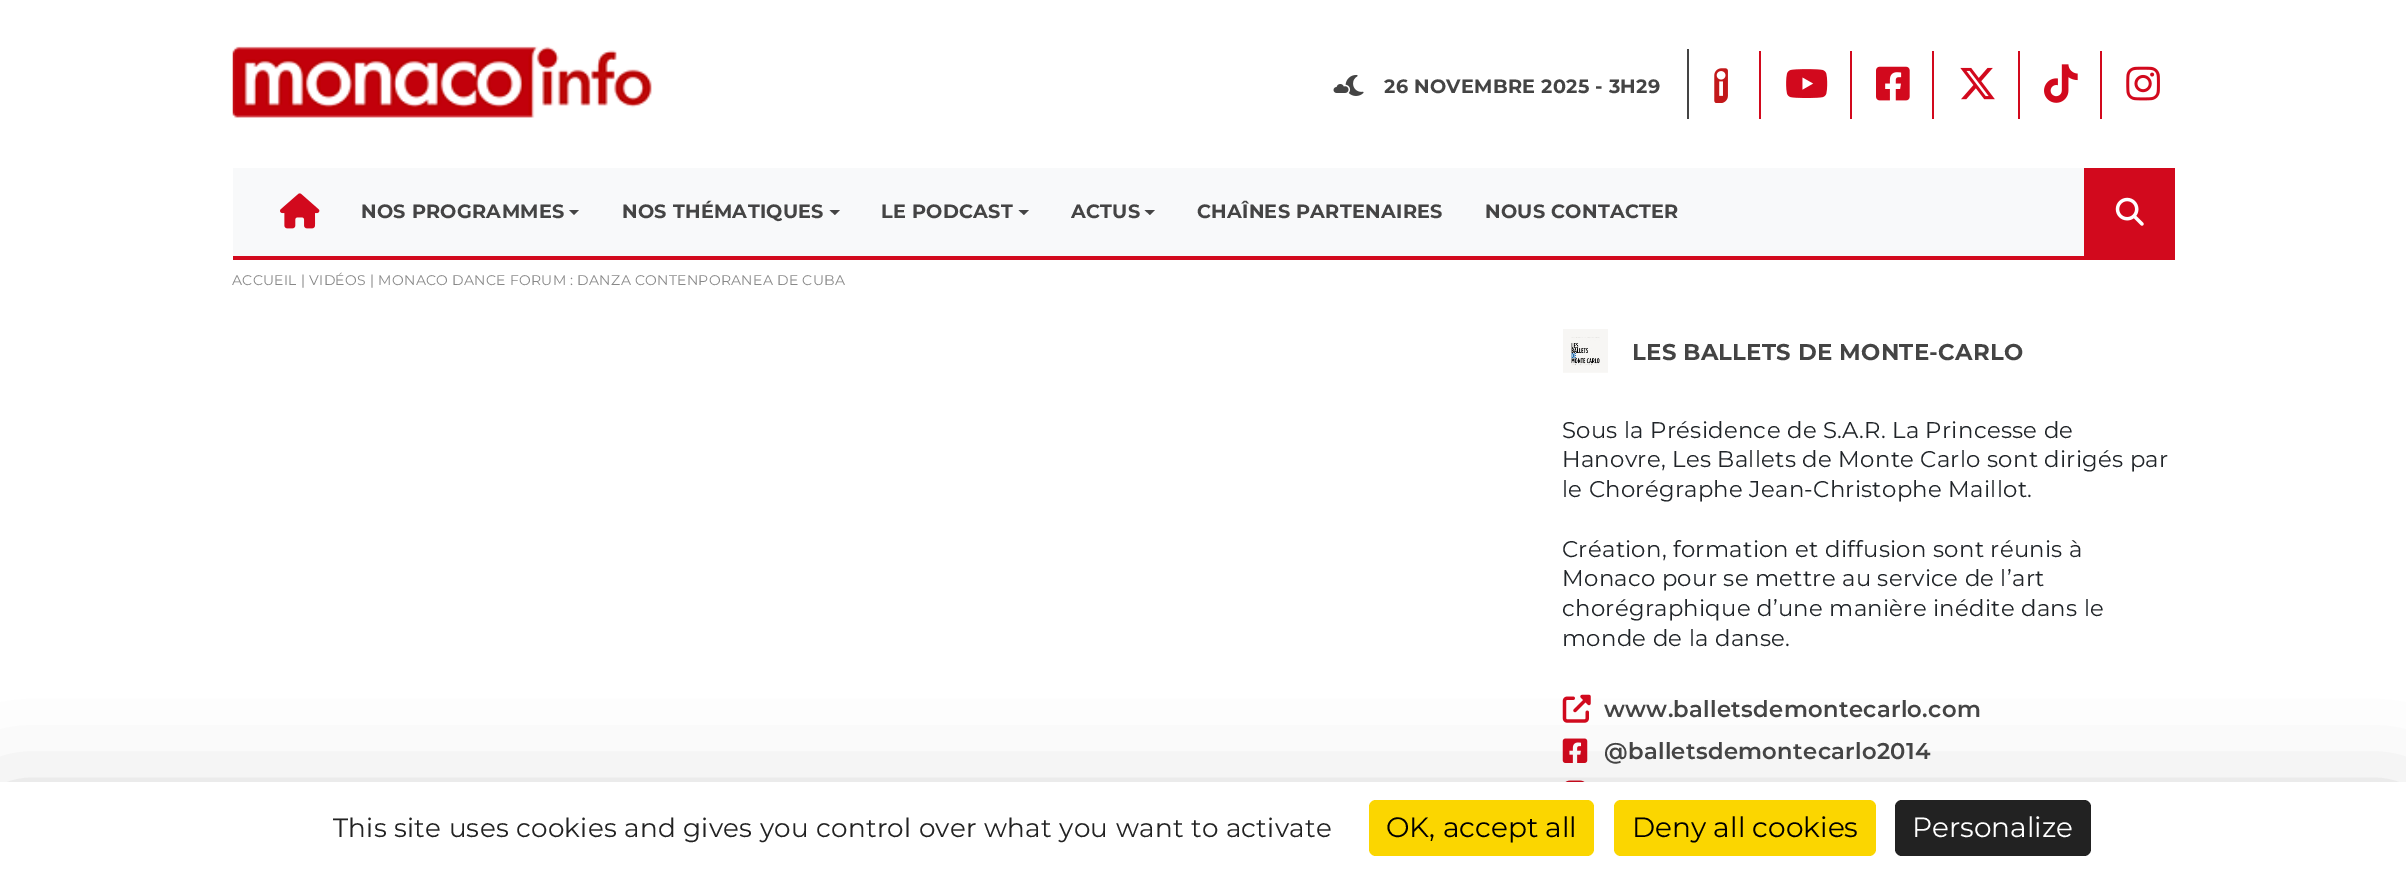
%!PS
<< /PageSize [2406 873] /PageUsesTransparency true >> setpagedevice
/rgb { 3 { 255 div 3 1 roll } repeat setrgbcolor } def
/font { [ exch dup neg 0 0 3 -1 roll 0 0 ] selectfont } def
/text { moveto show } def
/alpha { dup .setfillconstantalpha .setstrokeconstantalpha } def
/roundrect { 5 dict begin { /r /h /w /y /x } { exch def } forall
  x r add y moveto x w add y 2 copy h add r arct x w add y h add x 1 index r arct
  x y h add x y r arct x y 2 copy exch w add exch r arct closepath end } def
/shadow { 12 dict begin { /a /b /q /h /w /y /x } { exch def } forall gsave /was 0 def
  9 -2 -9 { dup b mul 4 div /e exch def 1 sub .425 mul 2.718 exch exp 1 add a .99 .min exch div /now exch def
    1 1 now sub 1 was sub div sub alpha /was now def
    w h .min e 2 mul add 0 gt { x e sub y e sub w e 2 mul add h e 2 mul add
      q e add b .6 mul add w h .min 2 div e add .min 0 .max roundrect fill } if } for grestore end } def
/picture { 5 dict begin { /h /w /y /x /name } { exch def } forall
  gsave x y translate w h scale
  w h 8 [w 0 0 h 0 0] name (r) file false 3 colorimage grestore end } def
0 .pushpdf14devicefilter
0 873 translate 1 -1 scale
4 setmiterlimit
255 255 255 rgb
0 0 2406 873 rectfill
(img_01.rgb) 232 46 420 72 picture
(img_02.rgb) 1333 74 31 22 picture
68 68 68 rgb
1687 49 2 70 rectfill
(img_03.rgb) 1714 68 14 35 picture
210 9 29 rgb
1759 51 2 68 rectfill
(img_04.rgb) 1786 69 42 29 picture
1850 51 2 68 rectfill
(img_05.rgb) 1876 66 34 35 picture
1932 51 2 68 rectfill
(img_06.rgb) 1960 67 35 33 picture
2018 51 2 68 rectfill
(img_07.rgb) 2044 64 34 39 picture
2100 51 2 68 rectfill
(img_08.rgb) 2126 66 34 35 picture
233 256 1942 4 rectfill
248 249 250 rgb
233 168 1851 88 rectfill
(img_09.rgb) 280 193 40 36 picture
68 68 68 rgb
569 210 moveto 10 0 rlineto -5 5 rlineto closepath fill
829.5 210 moveto 10.5 0 rlineto -5 5 rlineto closepath fill
1018.5 210 moveto 10.5 0 rlineto -5 5 rlineto closepath fill
1144.5 210 moveto 10.5 0 rlineto -5 5 rlineto closepath fill
210 9 29 rgb
2084 168 91 88 rectfill
(img_10.rgb) 2115 197 29 29 picture
(img_11.rgb) 1563 329 45 44 picture
(img_12.rgb) 1562 694 29 29 picture
(img_13.rgb) 1562 738 26 25 picture
(img_14.rgb) 1565 780 20 2 picture
0 0 0 rgb
0 817 2406 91 0 52.5 0.25 shadow
255 255 255 rgb
0 782 2406 91 rectfill
251 214 0 rgb
1369 800 225 56 7 roundrect fill
1614 800 262 56 7 roundrect fill
34 34 34 rgb
1895 800 196 56 7 roundrect fill
/Montserrat-Bold 19.25 font
68 68 68 rgb
1384 93 moveto 0.28 0 (26 NOVEMBRE 2025 - 3H29) ashow
361 218 moveto 0.28 0 (NOS PROGRAMMES) ashow
622 218 moveto 0.28 0 (NOS THÉMATIQUES) ashow
881 218 moveto 0.28 0 (LE PODCAST) ashow
1071 218 moveto 0.28 0 (ACTUS) ashow
1197 218 moveto 0.28 0 (CHAÎNES PARTENAIRES) ashow
1485 218 moveto 0.28 0 (NOUS CONTACTER) ashow
/Montserrat-Regular 14 font
136 136 136 rgb
232 285 moveto 0.28 0 (ACCUEIL | VIDÉOS | MONACO DANCE FORUM : DANZA CONTENPORANEA DE CUBA) ashow
/Montserrat-Bold 22.75 font
68 68 68 rgb
1632 360 moveto 0.28 0 (LES BALLETS DE MONTE-CARLO) ashow
/Montserrat-Regular 22.75 font
33 37 41 rgb
1562 438 moveto 0.28 0 (Sous la Présidence de S.A.R. La Princesse de) ashow
1562 467 moveto 0.28 0 (Hanovre, Les Ballets de Monte Carlo sont dirigés par) ashow
1562 497 moveto 0.28 0 (le Chorégraphe Jean-Christophe Maillot.) ashow
1562 557 moveto 0.28 0 (Création, formation et diffusion sont réunis à) ashow
1562 586 moveto 0.28 0 (Monaco pour se mettre au service de l’art) ashow
1562 616 moveto 0.28 0 (chorégraphique d’une manière inédite dans le) ashow
1562 646 moveto 0.28 0 (monde de la danse.) ashow
/Montserrat-SemiBold 22.75 font
68 68 68 rgb
1604 717 moveto 0.28 0 (www.balletsdemontecarlo.com) ashow
1604 759 moveto 0.28 0 (@balletsdemontecarlo2014) ashow
/Montserrat-Regular 26.25 font
34 34 34 rgb
333 837 moveto 0.28 0 (This site uses cookies and gives you control over what you want to activate) ashow
/Montserrat-Regular 28 font
0 0 0 rgb
(OK, accept all) 1386 837 text
(Deny all cookies) 1632 837 text
255 255 255 rgb
(Personalize) 1912 837 text
.poppdf14devicefilter showpage
